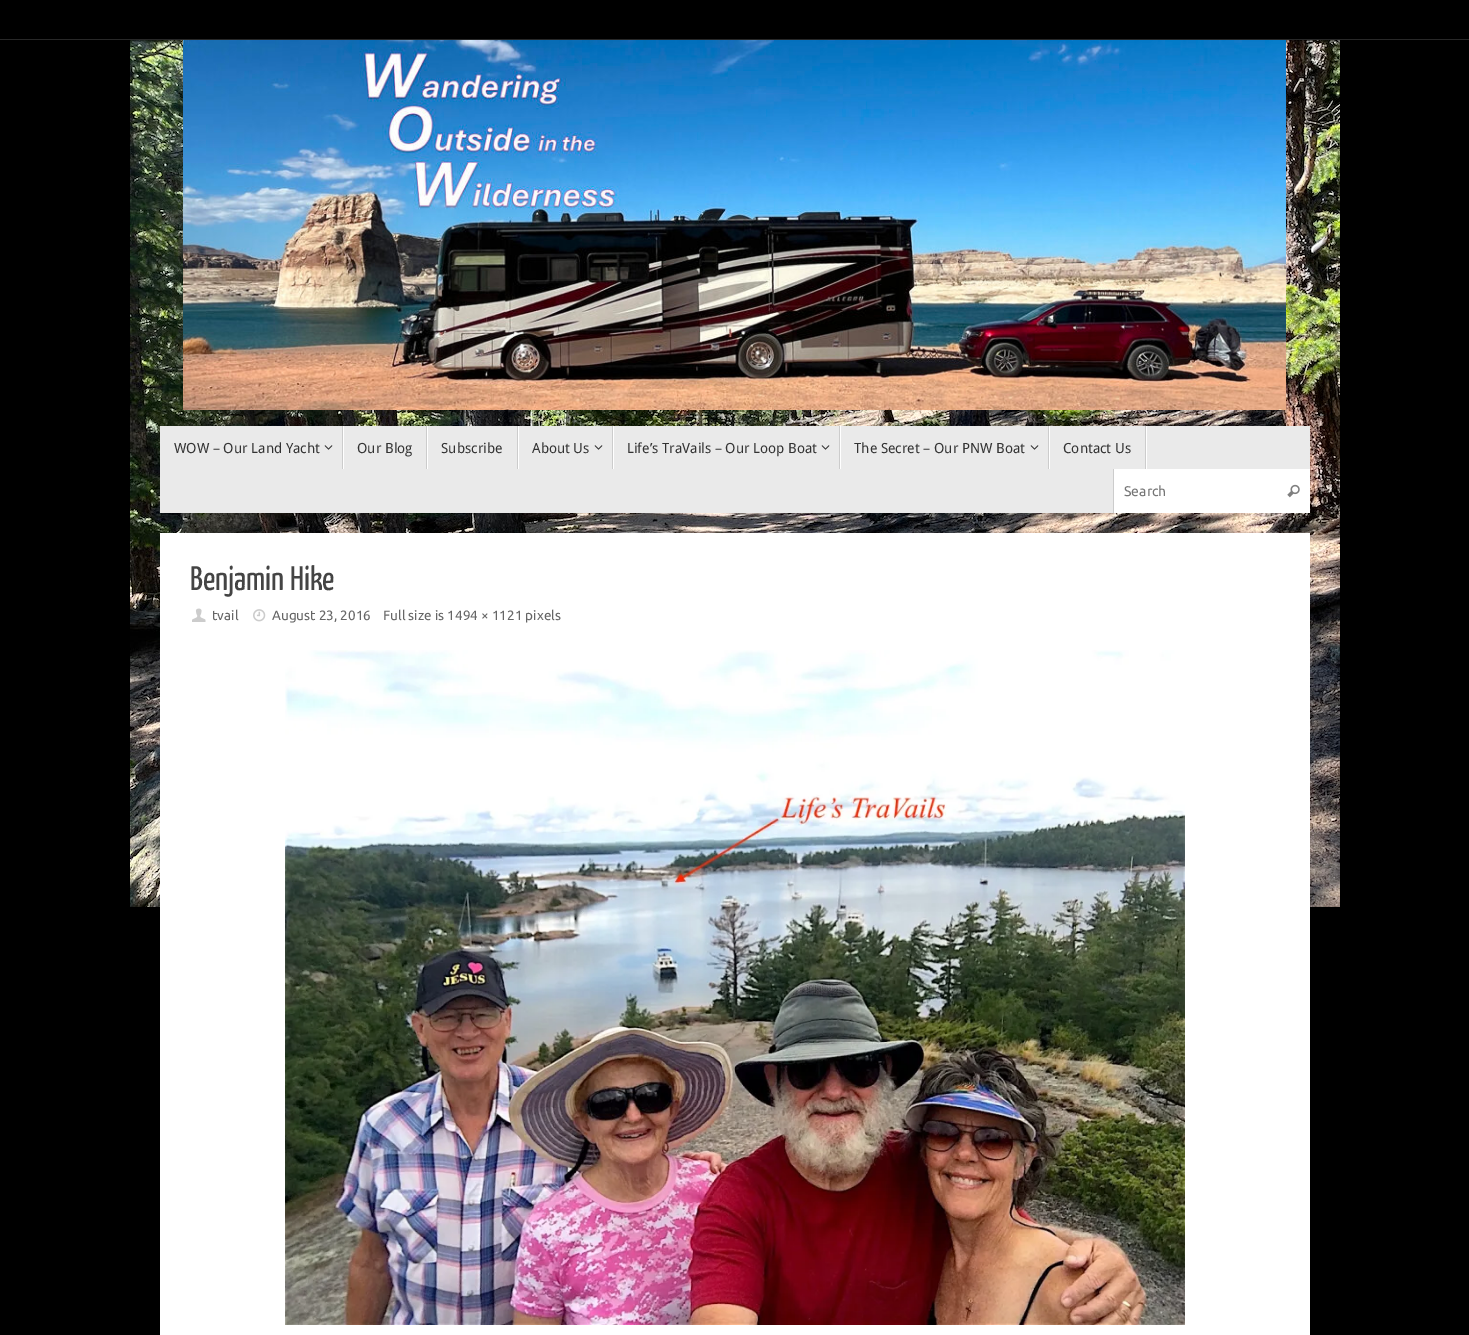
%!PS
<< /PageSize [1469 1335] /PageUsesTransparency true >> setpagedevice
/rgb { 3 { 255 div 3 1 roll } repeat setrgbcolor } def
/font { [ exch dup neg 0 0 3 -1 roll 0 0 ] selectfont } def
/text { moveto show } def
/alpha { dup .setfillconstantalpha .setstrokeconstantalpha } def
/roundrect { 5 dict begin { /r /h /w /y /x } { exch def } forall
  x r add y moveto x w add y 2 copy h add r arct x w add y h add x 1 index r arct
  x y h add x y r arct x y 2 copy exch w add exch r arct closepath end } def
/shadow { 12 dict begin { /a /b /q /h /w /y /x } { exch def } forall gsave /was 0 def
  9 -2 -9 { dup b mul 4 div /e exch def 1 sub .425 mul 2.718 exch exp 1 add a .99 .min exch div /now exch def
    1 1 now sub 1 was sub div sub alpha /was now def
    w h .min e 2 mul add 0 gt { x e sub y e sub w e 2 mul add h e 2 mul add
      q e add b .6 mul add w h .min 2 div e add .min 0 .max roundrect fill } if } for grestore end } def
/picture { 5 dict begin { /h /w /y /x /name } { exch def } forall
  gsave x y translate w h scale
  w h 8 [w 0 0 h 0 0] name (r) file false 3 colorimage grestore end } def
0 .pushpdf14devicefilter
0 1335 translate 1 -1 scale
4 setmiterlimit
0 0 0 rgb
0 0 1469 1335 rectfill
(img_01.rgb) 130 40 1210 867 picture
3 0 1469 40 0 1.5 1 shadow
40 40 40 rgb
0 39 1469 1 rectfill
(img_02.rgb) 183 40 1103 370 picture
234 234 234 rgb
160 426 1150 87 rectfill
255 255 255 rgb
343 426 1 43 rectfill
204 204 204 rgb
342 426 1 43 rectfill
(img_03.rgb) 324 445 9 5 picture
255 255 255 rgb
427 426 1 43 rectfill
204 204 204 rgb
426 426 1 43 rectfill
255 255 255 rgb
518 426 1 43 rectfill
204 204 204 rgb
517 426 1 43 rectfill
255 255 255 rgb
613 426 1 43 rectfill
204 204 204 rgb
612 426 1 43 rectfill
(img_03.rgb) 594 445 9 5 picture
255 255 255 rgb
840 426 1 43 rectfill
204 204 204 rgb
839 426 1 43 rectfill
(img_03.rgb) 821 445 9 5 picture
255 255 255 rgb
1049 426 1 43 rectfill
204 204 204 rgb
1048 426 1 43 rectfill
(img_03.rgb) 1030 445 9 5 picture
255 255 255 rgb
1146 426 1 43 rectfill
204 204 204 rgb
1145 426 1 43 rectfill
255 255 255 rgb
1114 469 196 44 rectfill
204 204 204 rgb
1113 469 1 44 rectfill
(img_04.rgb) 1287 484 13 14 picture
255 255 255 rgb
160 533 1150 802 rectfill
(img_05.rgb) 192 608 14 14 picture
(img_06.rgb) 253 609 13 13 picture
(img_07.rgb) 285 650 900 675 picture
/DroidSans-Regular 14 font
51 51 51 rgb
(WOW – Our Land Yacht) 174 453 text
(Our Blog) 357 453 text
(Subscribe) 441 453 text
(About Us) 532 453 text
(Life’s TraVails – Our Loop Boat) 627 453 text
(The Secret – Our PNW Boat) 854 453 text
(Contact Us) 1063 453 text
/Ubuntu-Regular 14 font
117 117 117 rgb
(Search) 1124 496 text
/YanoneKaffeesatz-Regular 34 font
68 68 68 rgb
(Benjamin Hike) 190 590 text
/Ubuntu-Regular 13.5 font
102 102 102 rgb
(tvail) 212 620 text
(August 23, 2016) 272 620 text
(Full size is 1494 × 1121 pixels) 383 620 text
.poppdf14devicefilter showpage
